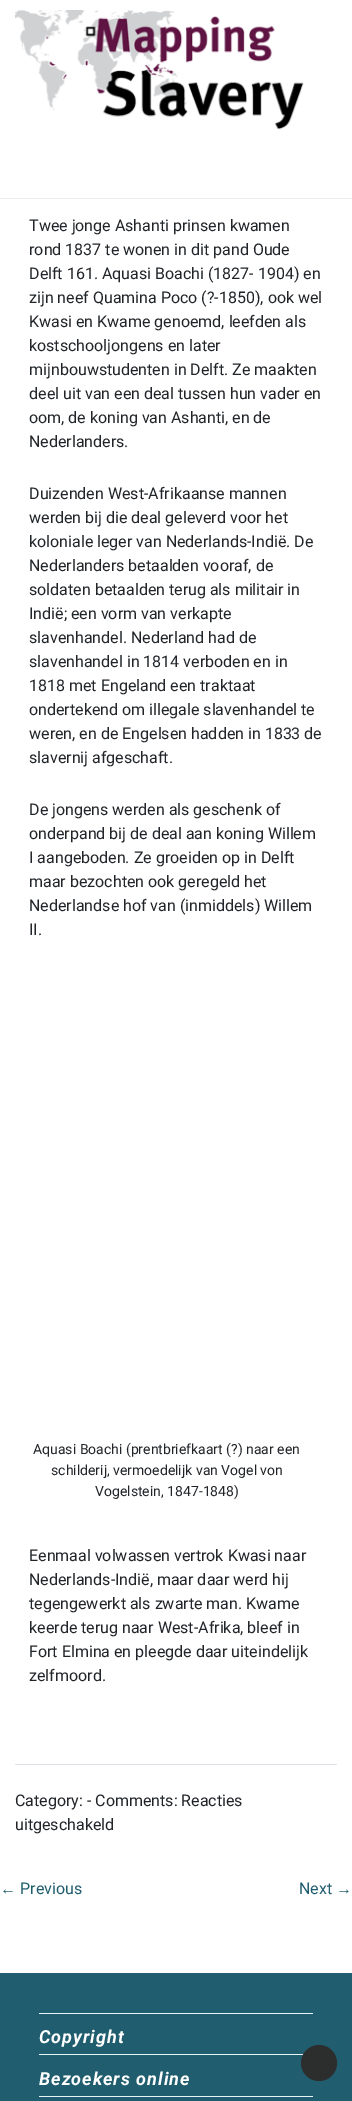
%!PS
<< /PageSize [352 2101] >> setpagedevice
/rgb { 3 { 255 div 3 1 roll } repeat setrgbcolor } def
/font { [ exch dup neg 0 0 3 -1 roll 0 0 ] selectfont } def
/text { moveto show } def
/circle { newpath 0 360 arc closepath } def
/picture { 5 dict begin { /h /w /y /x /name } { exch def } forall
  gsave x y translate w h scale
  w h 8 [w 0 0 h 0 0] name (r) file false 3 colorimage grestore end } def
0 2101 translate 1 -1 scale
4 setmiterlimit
255 255 255 rgb
0 0 352 2101 rectfill
237 237 237 rgb
0 198 352 1 rectfill
(img_01.rgb) 15 10 289 120 picture
222 226 230 rgb
15 1764 322 1 rectfill
32 94 111 rgb
0 1973 352 128 rectfill
230 246 248 rgb
39 2013 274 1 rectfill
39 2054 265 1 rectfill
39 2096 274 1 rectfill
44 45 45 rgb
319 2063 18 circle fill
/Roboto-Regular 16 font
33 37 41 rgb
(Twee jonge Ashanti prinsen kwamen) 29 231 text
(rond 1837 te wonen in dit pand Oude) 29 255 text
(Delft 161. Aquasi Boachi \(1827- 1904\) en) 29 279 text
(zijn neef Quamina Poco \(?-1850\), ook wel) 29 303 text
(Kwasi en Kwame genoemd, leefden als) 29 327 text
(kostschooljongens en later) 29 351 text
(mijnbouwstudenten in Delft. Ze maakten) 29 375 text
(deel uit van een deal tussen hun vader en) 29 399 text
(oom, de koning van Ashanti, en de) 29 423 text
(Nederlanders.) 29 447 text
(Duizenden West-Afrikaanse mannen) 29 499 text
(werden bij die deal geleverd voor het) 29 523 text
(koloniale leger van Nederlands-Indië. De) 29 547 text
(Nederlanders betaalden vooraf, de) 29 571 text
(soldaten betaalden terug als militair in) 29 595 text
(Indië; een vorm van verkapte) 29 619 text
(slavenhandel. Nederland had de) 29 643 text
(slavenhandel in 1814 verboden en in) 29 667 text
(1818 met Engeland een traktaat) 29 691 text
(ondertekend om illegale slavenhandel te) 29 715 text
(weren, en de Engelsen hadden in 1833 de) 29 739 text
(slavernij afgeschaft.) 29 763 text
(De jongens werden als geschenk of) 29 815 text
(onderpand bij de deal aan koning Willem) 29 839 text
(I aangeboden. Ze groeiden op in Delft) 29 863 text
(maar bezochten ook geregeld het) 29 887 text
(Nederlandse hof van \(inmiddels\) Willem) 29 911 text
(II.) 29 935 text
/Roboto-Regular 14 font
(Aquasi Boachi \(prentbriefkaart \(?\) naar een) 33 1454 text
(schilderij, vermoedelijk van Vogel von) 51 1475 text
(Vogelstein, 1847-1848\)) 95 1496 text
/Roboto-Regular 16 font
(Eenmaal volwassen vertrok Kwasi naar) 29 1561 text
(Nederlands-Indië, maar daar werd hij) 29 1585 text
(tegengewerkt als zwarte man. Kwame) 29 1609 text
(keerde terug naar West-Afrika, bleef in) 29 1633 text
(Fort Elmina en pleegde daar uiteindelijk) 29 1657 text
(zelfmoord.) 29 1681 text
(Category: - Comments: Reacties) 15 1806 text
(uitgeschakeld) 15 1830 text
/LiberationSerif-Regular 16 font
32 94 111 rgb
(←) 0 1894 text
/Roboto-Regular 16 font
(Previous) 20 1894 text
(Next) 299 1894 text
/LiberationSerif-Regular 16 font
(→) 336 1894 text
/Roboto-BoldItalic 18 font
255 255 255 rgb
39 2043 moveto 1 0 (Copyright) ashow
39 2085 moveto 1 0 (Bezoekers online) ashow
showpage
